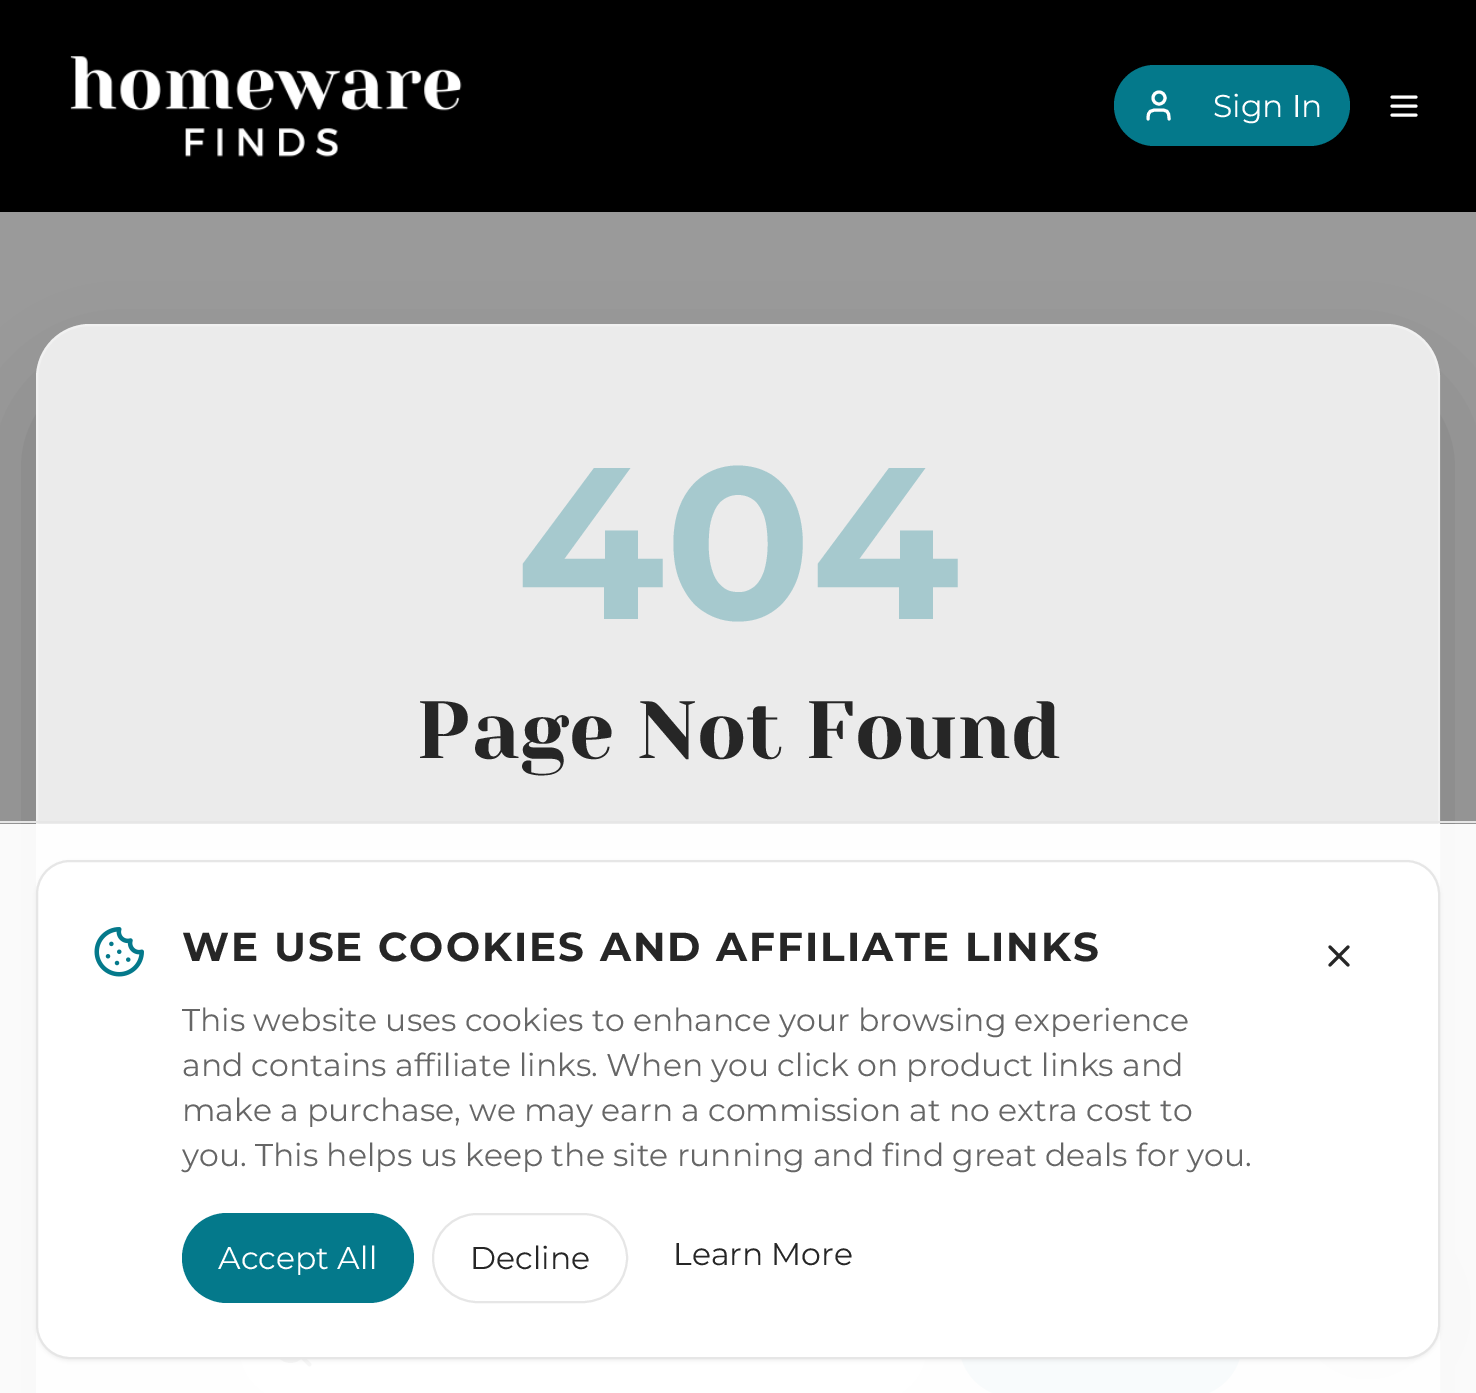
%!PS
<< /PageSize [1476 1393] /PageUsesTransparency true >> setpagedevice
/rgb { 3 { 255 div 3 1 roll } repeat setrgbcolor } def
/font { [ exch dup neg 0 0 3 -1 roll 0 0 ] selectfont } def
/text { moveto show } def
/alpha { dup .setfillconstantalpha .setstrokeconstantalpha } def
/circle { newpath 0 360 arc closepath } def
/roundrect { 5 dict begin { /r /h /w /y /x } { exch def } forall
  x r add y moveto x w add y 2 copy h add r arct x w add y h add x 1 index r arct
  x y h add x y r arct x y 2 copy exch w add exch r arct closepath end } def
/shadow { 12 dict begin { /a /b /q /h /w /y /x } { exch def } forall gsave /was 0 def
  9 -2 -9 { dup b mul 4 div /e exch def 1 sub .425 mul 2.718 exch exp 1 add a .99 .min exch div /now exch def
    1 1 now sub 1 was sub div sub alpha /was now def
    w h .min e 2 mul add 0 gt { x e sub y e sub w e 2 mul add h e 2 mul add
      q e add b .6 mul add w h .min 2 div e add .min 0 .max roundrect fill } if } for grestore end } def
/picture { 5 dict begin { /h /w /y /x /name } { exch def } forall
  gsave x y translate w h scale
  w h 8 [w 0 0 h 0 0] name (r) file false 3 colorimage grestore end } def
0 .pushpdf14devicefilter
0 1393 translate 1 -1 scale
4 setmiterlimit
154 154 154 rgb
0 0 1476 1393 rectfill
0 0 0 rgb
0 0 1476 212 rectfill
(img_01.rgb) 70 56 392 101 picture
4 121 139 rgb
1114 65 236 81 40.5 roundrect fill
255 255 255 rgb
3 setlinewidth
1 setlinecap
1 setlinejoin
1169 119 moveto 0 -8.5 -2 -9 -10 -9 rcurveto -8.5 0 -11 0.5 -11 9 rcurveto stroke
0 setlinecap
0 setlinejoin
1159 98 6 circle stroke
1 setlinecap
1 setlinejoin
1392 106 moveto 24 0 rlineto 1392 97 moveto 24 0 rlineto 1392 115 moveto 24 0 rlineto stroke
0 0 0 rgb
63 407 1350 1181 27 56 0.25 shadow
235 235 235 rgb
36 324 1404 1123 54 roundrect fill
0.3 alpha
255 255 255 rgb
2 setlinewidth
0 setlinecap
0 setlinejoin
37 325 1402 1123 53 roundrect stroke
1 alpha
236.5 1291.5 693 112 56 roundrect gsave fill grestore
230 230 230 rgb
5 setlinewidth
stroke
102 102 102 rgb
3.8 setlinewidth
290.5 1346 15 circle stroke
1 setlinecap
1 setlinejoin
309.5 1364.5 moveto -8 -8 rlineto stroke
120 178 187 rgb
959 1289 283 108 54 roundrect fill
0 0 0 rgb
1305 1233 126 126 63 7 0.1 shadow
1303 1244 130 131 65 17 0.1 shadow
0.95 alpha
255 255 255 rgb
0 824 1476 569 rectfill
1 alpha
230 230 230 rgb
0 821 1476 2 rectfill
0 0 0 rgb
36 862 1404 499 34 2 0.05 shadow
255 255 255 rgb
37 861 1402 497 33 roundrect gsave fill grestore
230 230 230 rgb
2 setlinewidth
0 setlinecap
0 setlinejoin
stroke
(img_02.rgb) 94 927 50 50 picture
4 121 139 rgb
182 1213 232 90 45 roundrect fill
230 230 230 rgb
433 1214 194 88 44 roundrect stroke
38 38 38 rgb
3 setlinewidth
1 setlinecap
1 setlinejoin
1348 947 moveto -18 18 rlineto 1330 947 moveto 18 18 rlineto stroke
/Montserrat-Regular 31.5 font
255 255 255 rgb
(Sign In) 1213 117 text
/Montserrat-Bold 216 font
166 201 206 rgb
(404) 516 619 text
/YesevaOne-Regular 81 font
38 38 38 rgb
(Page Not Found) 416 758 text
/Montserrat-Bold 40.5 font
182 961 moveto 2 0 (WE USE COOKIES AND AFFILIATE LINKS) ashow
/Montserrat-Regular 31.5 font
102 102 102 rgb
(This website uses cookies to enhance your browsing experience) 182 1031 text
(and contains affiliate links. When you click on product links and) 182 1076 text
(make a purchase, we may earn a commission at no extra cost to) 182 1121 text
(you. This helps us keep the site running and find great deals for you.) 182 1166 text
255 255 255 rgb
(Accept All) 218 1269 text
38 38 38 rgb
(Decline) 470 1269 text
(Learn More) 673 1265 text
.poppdf14devicefilter showpage
